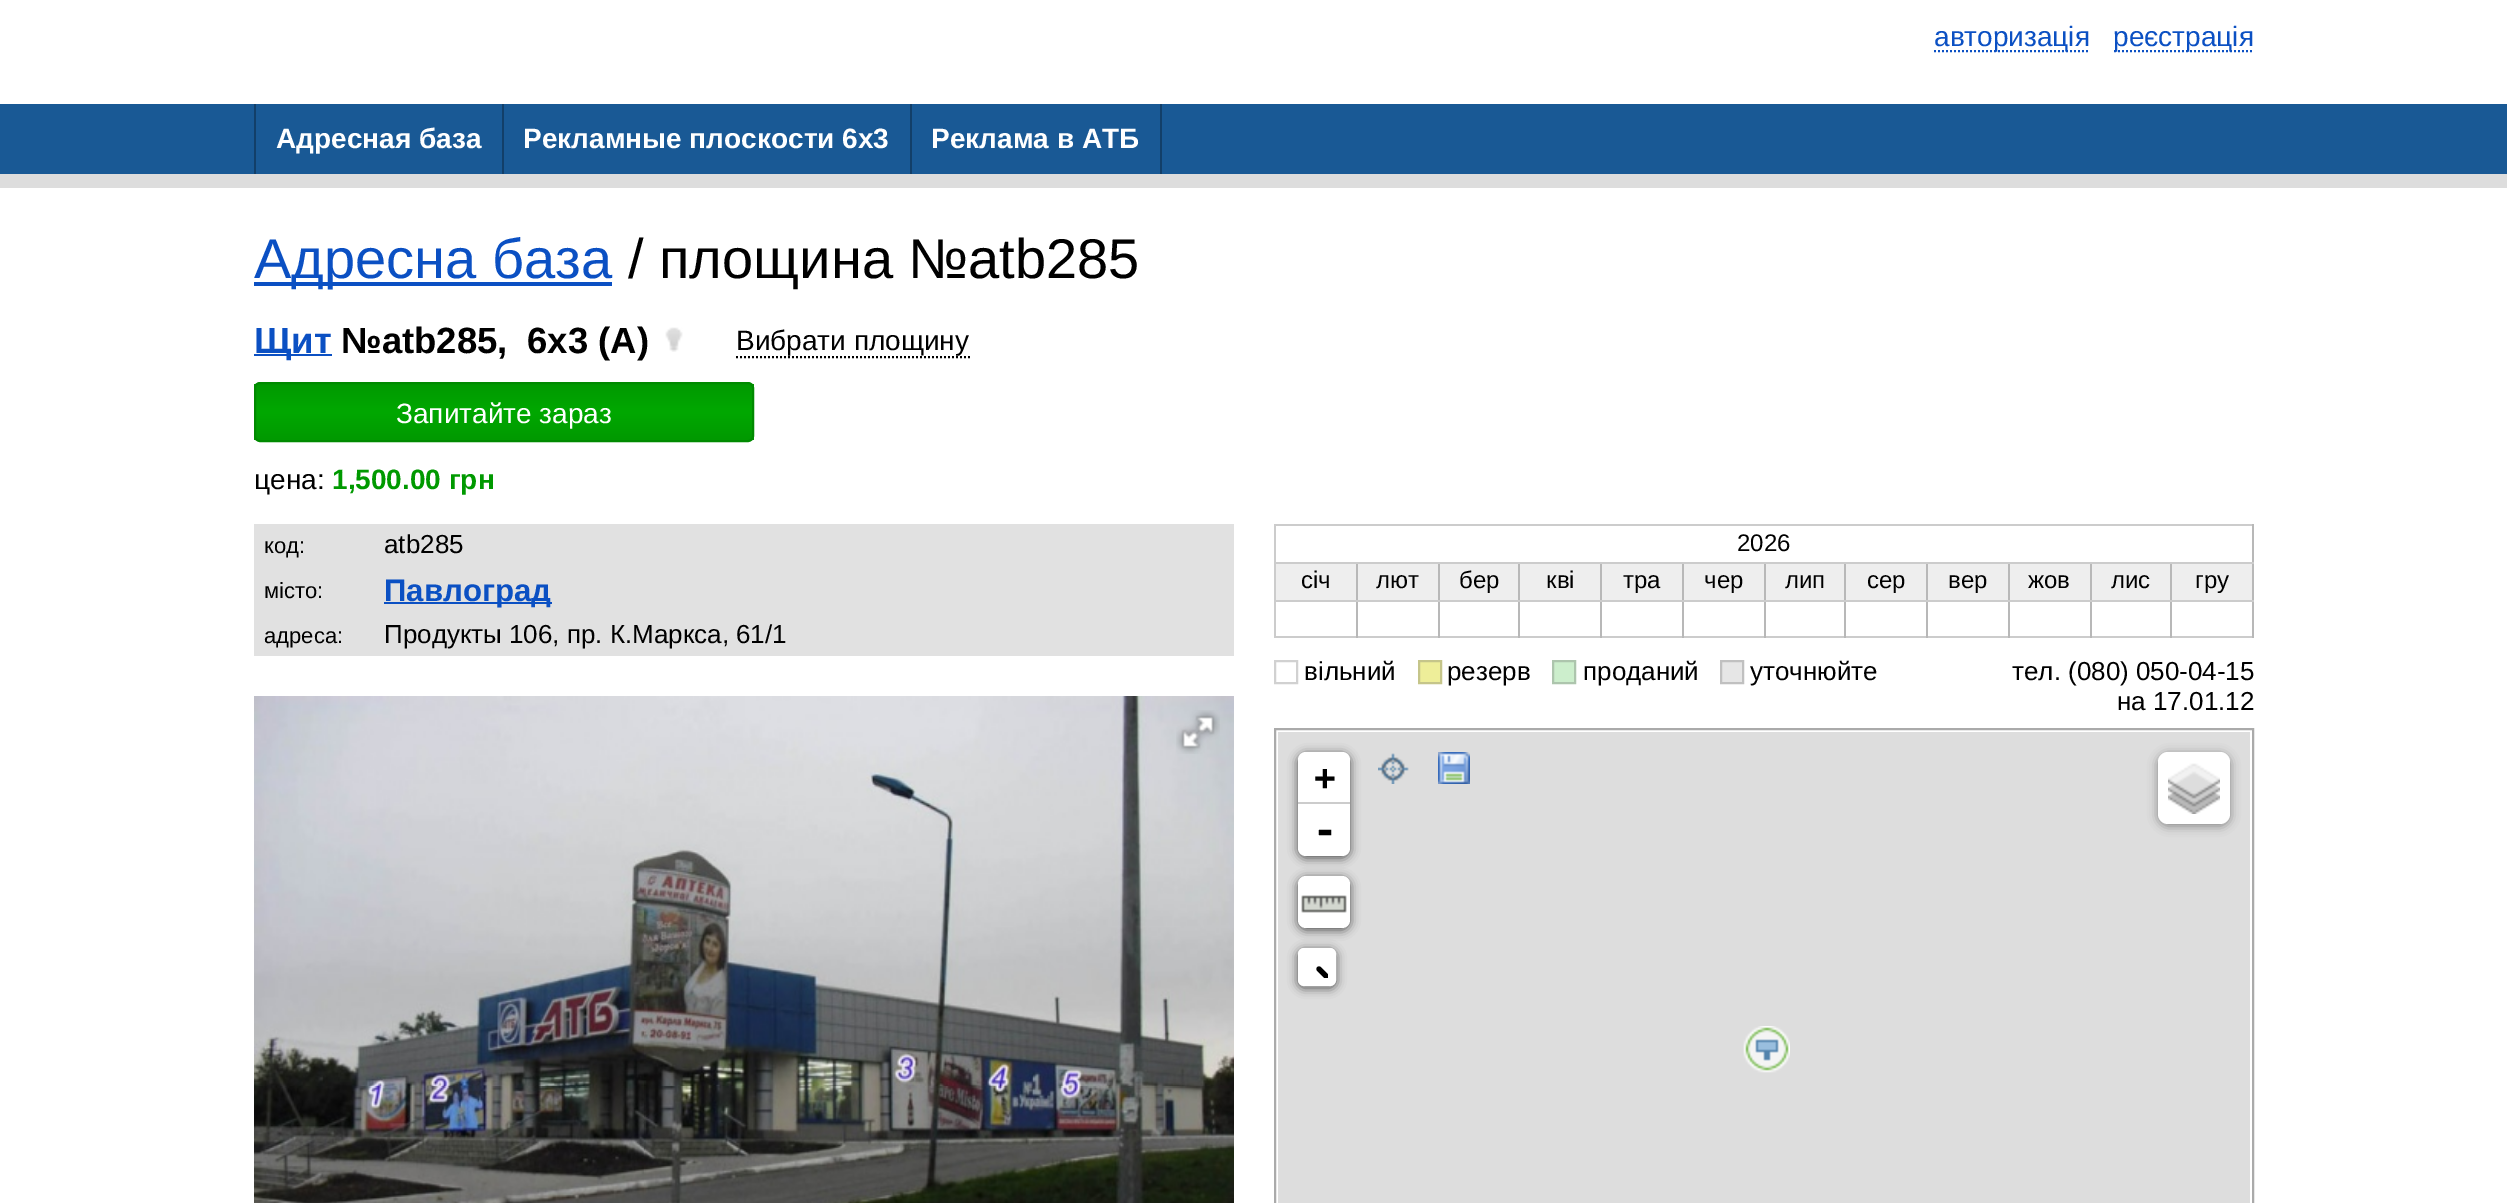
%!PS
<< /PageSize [2507 1203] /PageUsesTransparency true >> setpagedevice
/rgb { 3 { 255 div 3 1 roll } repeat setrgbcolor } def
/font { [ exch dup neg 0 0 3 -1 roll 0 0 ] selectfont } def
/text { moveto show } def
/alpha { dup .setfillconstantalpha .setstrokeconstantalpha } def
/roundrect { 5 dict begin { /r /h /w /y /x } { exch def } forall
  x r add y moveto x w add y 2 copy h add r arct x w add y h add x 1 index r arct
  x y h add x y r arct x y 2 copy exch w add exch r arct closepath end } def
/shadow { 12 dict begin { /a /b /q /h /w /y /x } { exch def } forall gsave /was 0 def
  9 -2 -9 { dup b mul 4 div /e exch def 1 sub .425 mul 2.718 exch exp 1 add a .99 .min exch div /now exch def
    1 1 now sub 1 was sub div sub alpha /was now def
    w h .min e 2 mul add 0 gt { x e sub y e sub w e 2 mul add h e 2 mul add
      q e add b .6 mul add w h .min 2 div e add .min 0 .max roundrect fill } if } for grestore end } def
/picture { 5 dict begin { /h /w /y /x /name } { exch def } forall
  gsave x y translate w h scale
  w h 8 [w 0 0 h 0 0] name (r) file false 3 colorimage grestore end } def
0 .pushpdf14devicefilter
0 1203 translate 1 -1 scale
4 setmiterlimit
255 255 255 rgb
0 0 2507 1203 rectfill
11 80 195 rgb
2 setlinewidth
[2 2] 0 setdash
1934 51 moveto 156 0 rlineto stroke
2114 51 moveto 140 0 rlineto stroke
25 89 149 rgb
0 104 2507 70 rectfill
221 221 221 rgb
0 174 2507 14 rectfill
18 63 105 rgb
254 104 2 70 rectfill
502 104 2 70 rectfill
1160 104 2 70 rectfill
910 104 2 70 rectfill
11 80 195 rgb
254 282 358 4 rectfill
254 354 78 2 rectfill
(img_01.rgb) 665 327 18 25 picture
0 0 0 rgb
736 357 moveto 234 0 rlineto stroke
gsave
254 382 500 60 6 roundrect clip newpath
gsave 254 384 moveto 500 0 rlineto 0 56 rlineto -500 0 rlineto closepath clip newpath
<< /ShadingType 2 /ColorSpace /DeviceRGB /Coords [504 384 504 440] /Extend [true true] /Function << /FunctionType 3 /Domain [0 1] /Functions [<< /FunctionType 2 /Domain [0 1] /C0 [0 0.6 0] /C1 [0 0.659 0] /N 1 >> << /FunctionType 2 /Domain [0 1] /C0 [0 0.659 0] /C1 [0 0.6 0] /N 1 >>] /Bounds [0.5] /Encode [0 1 0 1] >> >> shfill grestore
grestore
0 138 0 rgb
[] 0 setdash
255 383 498 58 5 roundrect stroke
225 225 225 rgb
254 524 980 132 rectfill
11 80 195 rgb
384 602 168 2 rectfill
(img_02.rgb) 254 696 980 507 picture
(img_03.rgb) 1176 710 44 44 picture
204 204 204 rgb
1274 524 980 2 rectfill
184 184 184 rgb
2252 524 2 78 rectfill
204 204 204 rgb
1274 636 980 2 rectfill
1274 524 2 114 rectfill
184 184 184 rgb
2170 600 2 38 rectfill
2252 600 2 38 rectfill
204 204 204 rgb
2170 600 84 2 rectfill
184 184 184 rgb
2170 562 2 40 rectfill
2090 600 2 38 rectfill
204 204 204 rgb
2090 600 82 2 rectfill
184 184 184 rgb
2090 562 2 40 rectfill
2008 600 2 38 rectfill
204 204 204 rgb
2008 600 84 2 rectfill
184 184 184 rgb
2008 562 2 40 rectfill
1926 600 2 38 rectfill
204 204 204 rgb
1926 600 84 2 rectfill
184 184 184 rgb
1926 562 2 40 rectfill
1844 600 2 38 rectfill
204 204 204 rgb
1844 600 84 2 rectfill
184 184 184 rgb
1844 562 2 40 rectfill
1764 600 2 38 rectfill
204 204 204 rgb
1764 600 82 2 rectfill
184 184 184 rgb
1764 562 2 40 rectfill
1682 600 2 38 rectfill
204 204 204 rgb
1682 600 84 2 rectfill
184 184 184 rgb
1682 562 2 40 rectfill
1600 600 2 38 rectfill
204 204 204 rgb
1600 600 84 2 rectfill
184 184 184 rgb
1600 562 2 40 rectfill
1518 600 2 38 rectfill
204 204 204 rgb
1518 600 84 2 rectfill
184 184 184 rgb
1518 562 2 40 rectfill
1438 600 2 38 rectfill
204 204 204 rgb
1438 600 82 2 rectfill
184 184 184 rgb
1438 562 2 40 rectfill
1356 600 2 38 rectfill
204 204 204 rgb
1356 600 84 2 rectfill
184 184 184 rgb
1356 562 2 40 rectfill
204 204 204 rgb
1274 562 980 2 rectfill
238 238 238 rgb
1276 564 80 36 rectfill
204 204 204 rgb
1274 600 84 2 rectfill
238 238 238 rgb
1358 564 80 36 rectfill
1440 564 78 36 rectfill
1520 564 80 36 rectfill
1602 564 80 36 rectfill
1684 564 80 36 rectfill
1766 564 78 36 rectfill
1846 564 80 36 rectfill
1928 564 80 36 rectfill
2010 564 80 36 rectfill
2092 564 78 36 rectfill
2172 564 80 36 rectfill
209 209 209 rgb
1275 661 22 22 rectstroke
238 238 153 rgb
1419 661 moveto 22 0 rlineto 0 22 rlineto -22 0 rlineto closepath gsave fill grestore
197 197 138 rgb
stroke
204 238 204 rgb
1553 661 moveto 22 0 rlineto 0 22 rlineto -22 0 rlineto closepath gsave fill grestore
173 197 173 rgb
stroke
230 230 230 rgb
1721 661 moveto 22 0 rlineto 0 22 rlineto -22 0 rlineto closepath gsave fill grestore
192 192 192 rgb
stroke
170 170 170 rgb
1275 729 978 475 rectstroke
221 221 221 rgb
1278 732 972 471 rectfill
0 0 0 rgb
1298 754 52 104 8 5 0.65 shadow
255 255 255 rgb
1306 752 moveto 36 0 rlineto 4.5 0 8 3.5 8 8 rcurveto 0 44 rlineto -52 0 rlineto 0 -44 rlineto 0 -4.5 3.5 -8 8 -8 rcurveto closepath fill
204 204 204 rgb
1298 802 52 2 rectfill
255 255 255 rgb
1298 804 moveto 52 0 rlineto 0 44 rlineto 0 4.5 -3.5 8 -8 8 rcurveto -36 0 rlineto -4.5 0 -8 -3.5 -8 -8 rcurveto closepath fill
(img_04.rgb) 1378 753 31 31 picture
(img_05.rgb) 1438 752 32 32 picture
0 0 0 rgb
1298 878 52 52 8 5 0.65 shadow
255 255 255 rgb
1298 876 52 52 8 roundrect fill
(img_06.rgb) 1301 895 46 18 picture
0 0 0 rgb
1298 950 38 38 6 5 0.65 shadow
255 255 255 rgb
8 setlinewidth
1302 952 30 30 2 roundrect stroke
1306 956 22 22 rectfill
gsave
1306 956 22 22 rectclip
0 0 0 rgb
5.2 setlinewidth
1 setlinecap
1333 983 moveto -14 -14 rlineto stroke
grestore
0 0 0 rgb
2158 754 72 72 10 5 0.4 shadow
255 255 255 rgb
2158 752 72 72 10 roundrect fill
(img_07.rgb) 2168 763 52 51 picture
(img_08.rgb) 1743 1026 47 47 picture
(img_09.rgb) 1755 1039 24 22 picture
/LiberationSans-Regular 28 font
11 80 195 rgb
(авторизація) 1934 46 text
(реєстрація) 2113 46 text
/LiberationSans-Bold 28 font
255 255 255 rgb
(Адресная база) 276 148 text
(Рекламные плоскости 6x3) 523 148 text
(Реклама в АТБ) 931 148 text
/LiberationSans-Regular 56 font
11 80 195 rgb
(Адресна база) 254 278 text
0 0 0 rgb
(/ площина №atb285) 628 278 text
/LiberationSans-Bold 36.5 font
11 80 195 rgb
(Щит) 254 353 text
0 0 0 rgb
(№atb285,) 341 353 text
(6x3 \(A\)) 527 353 text
/LiberationSans-Regular 28 font
(Вибрати площину) 736 350 text
255 255 255 rgb
(Запитайте зараз) 396 423 text
0 0 0 rgb
(цена:) 254 489 text
/LiberationSans-Bold 28 font
0 153 0 rgb
(1,500.00 грн) 332 489 text
/LiberationSans-Regular 22 font
0 0 0 rgb
(код:) 264 553 text
/LiberationSans-Regular 26 font
(atb285) 384 553 text
/LiberationSans-Regular 22 font
(місто:) 264 598 text
/LiberationSans-Bold 31.25 font
11 80 195 rgb
(Павлоград) 384 601 text
/LiberationSans-Regular 22 font
0 0 0 rgb
(адреса:) 264 643 text
/LiberationSans-Regular 26 font
(Продукты 106, пр. К.Маркса, 61/1) 384 643 text
/LiberationSans-Regular 24 font
(2026) 1737 551 text
(січ) 1301 588 text
(лют) 1376 588 text
(бер) 1459 588 text
(кві) 1546 588 text
(тра) 1623 588 text
(чер) 1704 588 text
(лип) 1785 588 text
(сер) 1867 588 text
(вер) 1948 588 text
(жов) 2028 588 text
(лис) 2111 588 text
(гру) 2195 588 text
/LiberationSans-Regular 26 font
(вільний) 1304 680 text
(резерв) 1447 680 text
(проданий) 1583 680 text
(уточнюйте) 1750 680 text
(тел. \(080\) 050-04-15) 2012 680 text
(на 17.01.12) 2117 710 text
/DejaVuSansMono-Bold 36 font
(+) 1314 790 text
/DejaVuSansMono-Bold 40 font
(-) 1313 844 text
.poppdf14devicefilter showpage
